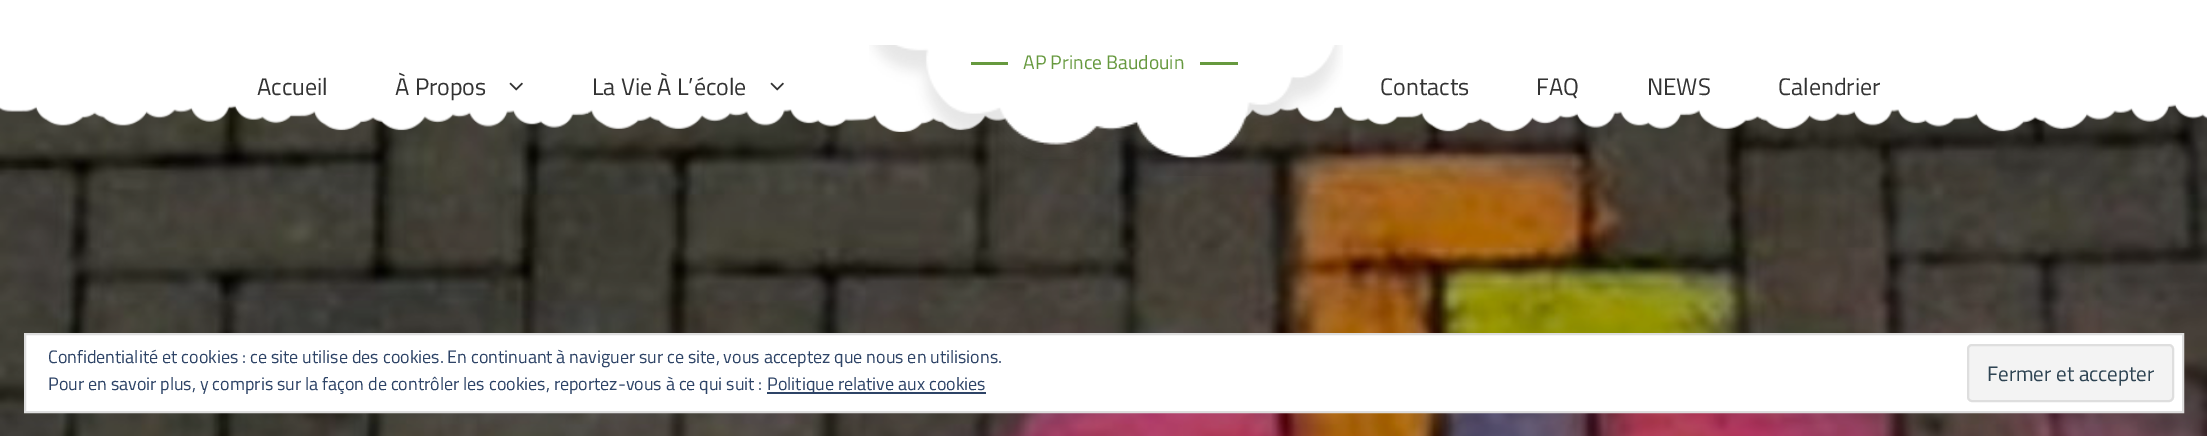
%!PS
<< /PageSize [2207 436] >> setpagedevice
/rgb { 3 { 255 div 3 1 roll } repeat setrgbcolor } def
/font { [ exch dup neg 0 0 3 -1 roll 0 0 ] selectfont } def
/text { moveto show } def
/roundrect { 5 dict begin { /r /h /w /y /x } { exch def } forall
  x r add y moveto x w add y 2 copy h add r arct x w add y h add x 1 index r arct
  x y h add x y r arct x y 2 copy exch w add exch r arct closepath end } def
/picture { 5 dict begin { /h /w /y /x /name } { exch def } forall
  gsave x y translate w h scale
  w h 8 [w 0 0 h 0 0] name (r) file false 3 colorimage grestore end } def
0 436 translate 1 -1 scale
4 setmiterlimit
255 255 255 rgb
0 0 2207 436 rectfill
(img_04.rgb) 0 104 2207 332 picture
(img_01.rgb) 0 0 2207 132 picture
(img_02.rgb) 869 45 474 131 picture
102 153 62 rgb
971 62 37 3 rectfill
1200 62 38 3 rectfill
(img_03.rgb) 509 82 14 9 picture
(img_03.rgb) 770 82 14 9 picture
255 255 255 rgb
25 334 moveto 2158 0 rlineto 0 78 rlineto -2158 0 rlineto closepath gsave fill grestore
222 222 222 rgb
2 setlinewidth
stroke
46 68 103 rgb
767 392 219 2 rectfill
243 243 243 rgb
1968 345 205 56 4 roundrect gsave fill grestore
222 222 222 rgb
stroke
/TitilliumWeb-Regular 19.5 font
102 153 62 rgb
(AP Prince Baudouin) 1023 69 text
/TitilliumWeb-Regular 24 font
51 51 51 rgb
(Accueil) 257 95 text
(À Propos) 395 95 text
(La Vie À L’école) 592 95 text
(Contacts) 1380 95 text
(FAQ) 1536 95 text
(NEWS) 1647 95 text
(Calendrier) 1778 95 text
/TitilliumWeb-Regular 18 font
46 68 103 rgb
(Confidentialité et cookies : ce site utilise des cookies. En continuant à naviguer sur ce site, vous acceptez que nous en utilisions.) 48 363 text
(Pour en savoir plus, y compris sur la façon de contrôler les cookies, reportez-vous à ce qui suit :) 48 390 text
(Politique relative aux cookies) 767 390 text
/TitilliumWeb-Regular 21 font
46 68 83 rgb
(Fermer et accepter) 1987 381 text
showpage
